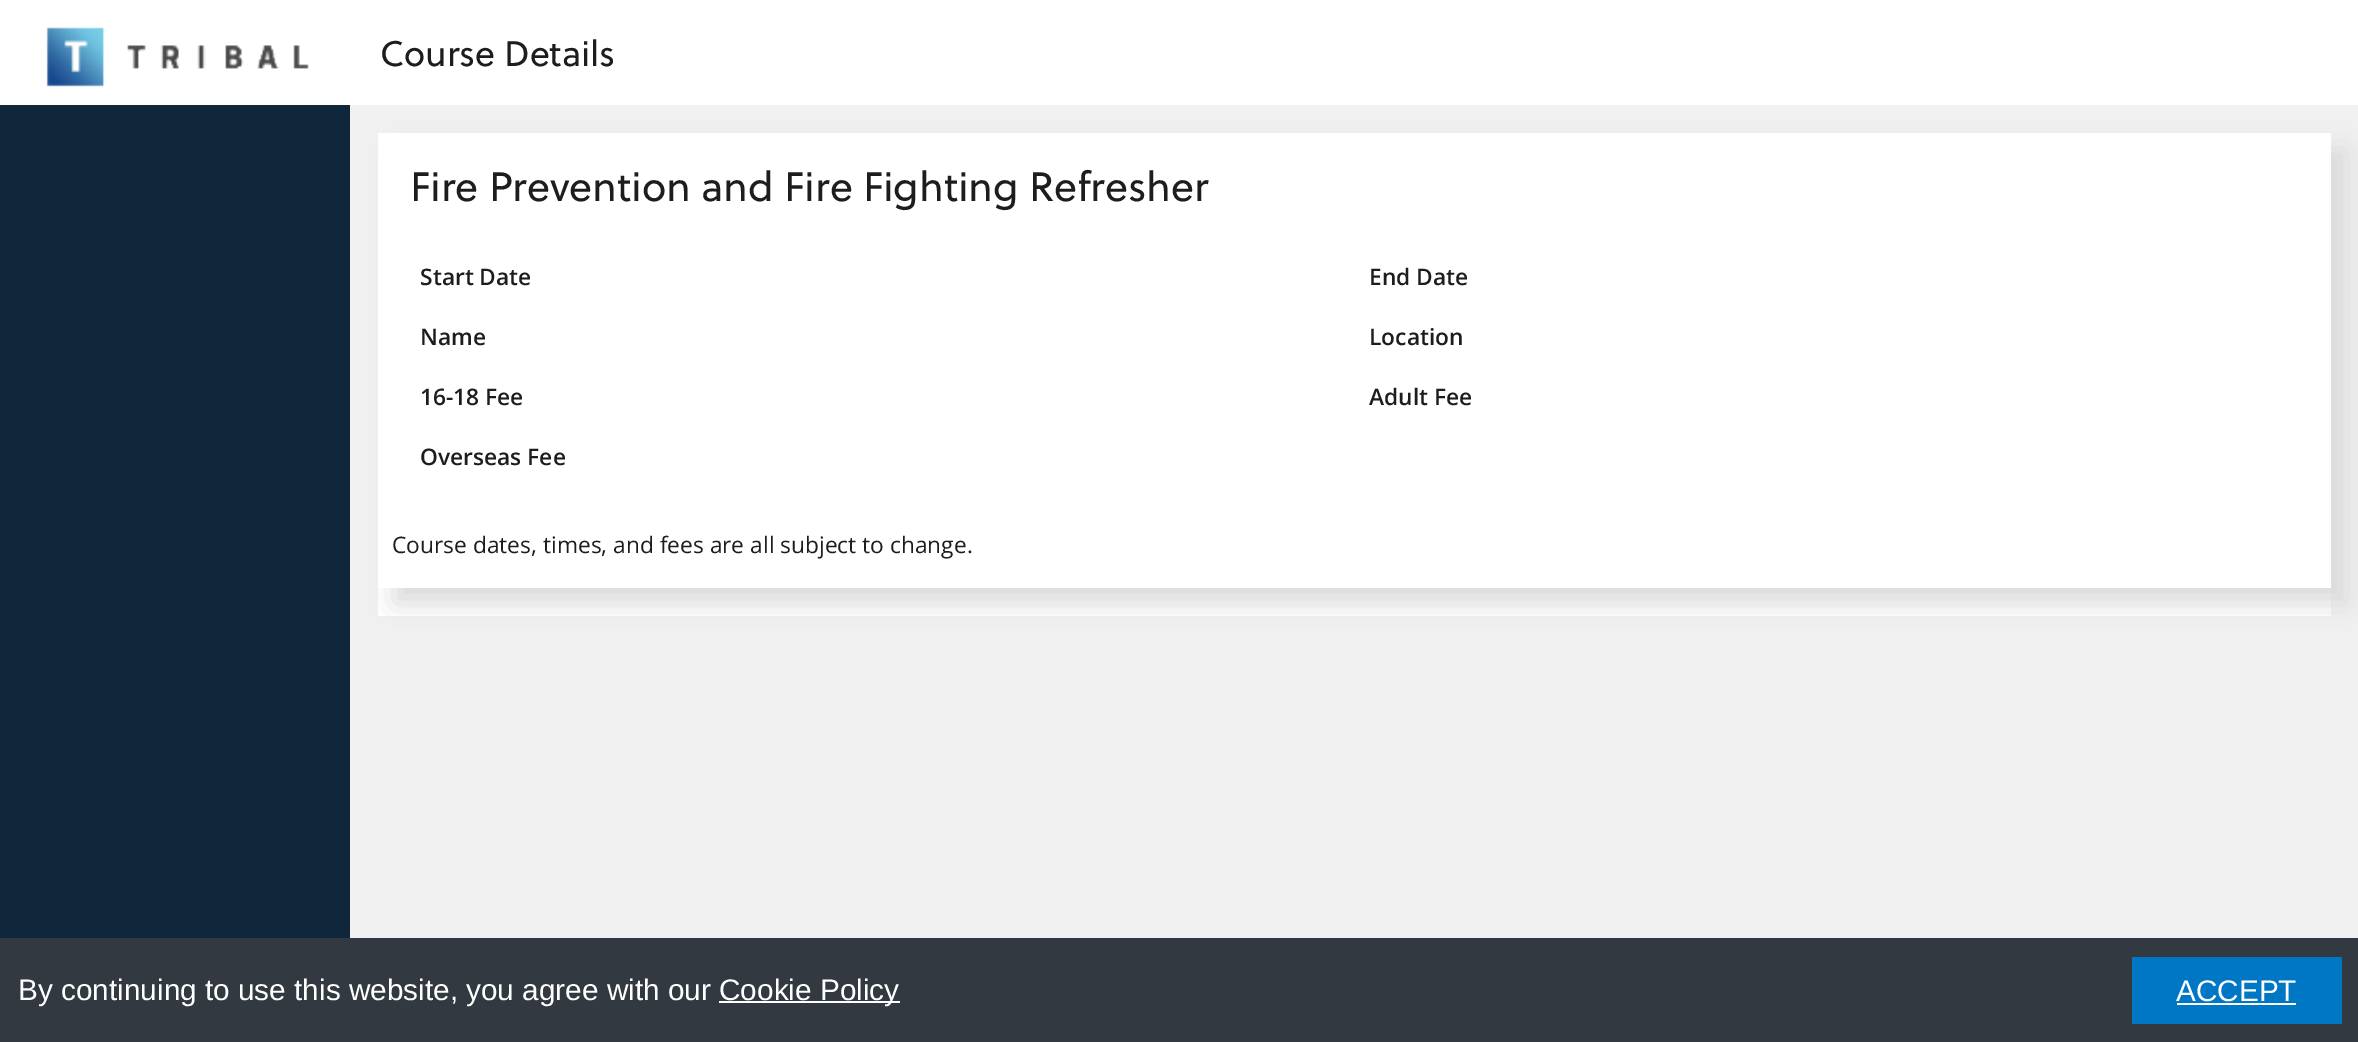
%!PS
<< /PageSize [2358 1042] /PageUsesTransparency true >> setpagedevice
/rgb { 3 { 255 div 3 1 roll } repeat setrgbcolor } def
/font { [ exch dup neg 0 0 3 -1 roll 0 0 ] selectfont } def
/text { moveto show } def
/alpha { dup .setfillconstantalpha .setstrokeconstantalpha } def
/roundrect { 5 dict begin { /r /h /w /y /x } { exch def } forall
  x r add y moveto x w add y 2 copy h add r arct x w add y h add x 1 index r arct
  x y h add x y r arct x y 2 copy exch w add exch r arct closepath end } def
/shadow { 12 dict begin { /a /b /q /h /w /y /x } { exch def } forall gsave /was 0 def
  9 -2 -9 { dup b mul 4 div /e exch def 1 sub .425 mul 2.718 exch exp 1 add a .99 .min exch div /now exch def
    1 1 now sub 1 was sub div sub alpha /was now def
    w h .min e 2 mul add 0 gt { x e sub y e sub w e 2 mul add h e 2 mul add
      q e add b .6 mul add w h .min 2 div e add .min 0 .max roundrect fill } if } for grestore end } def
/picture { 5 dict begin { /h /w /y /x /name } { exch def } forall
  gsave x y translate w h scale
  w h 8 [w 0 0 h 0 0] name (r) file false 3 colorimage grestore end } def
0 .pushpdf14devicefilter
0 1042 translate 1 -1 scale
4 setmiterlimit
241 241 241 rgb
0 0 2358 1042 rectfill
16 39 59 rgb
0 105 350 833 rectfill
255 255 255 rgb
0 0 2358 105 rectfill
(img_01.rgb) 46 27 263 60 picture
378 133 1953 483 rectfill
gsave
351 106 moveto 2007 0 rlineto 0 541 rlineto -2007 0 rlineto closepath 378 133 moveto 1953 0 rlineto 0 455 rlineto -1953 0 rlineto closepath eoclip newpath
217 217 217 rgb
394 149 1953 455 0 14 1 shadow
grestore
50 57 65 rgb
0 938 2358 104 rectfill
255 255 255 rgb
719 1001 181 2 rectfill
0 119 196 rgb
2132 957 210 67 rectfill
255 255 255 rgb
2177 1003 119 2 rectfill
/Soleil-Regular 35.5 font
29 29 29 rgb
(Course Details) 380 66 text
/Soleil-Regular 40.9 font
(Fire Prevention and Fire Fighting Refresher) 410 201 text
/OpenSans-SemiBold 22.75 font
(Start Date) 420 285 text
(End Date) 1369 285 text
(Name) 420 345 text
(Location) 1369 345 text
(16-18 Fee) 420 405 text
(Adult Fee) 1369 405 text
(Overseas Fee) 420 465 text
/OpenSans-Regular 22.75 font
(Course dates, times, and fees are all subject to change.) 392 553 text
/LiberationSans-Regular 29.75 font
255 255 255 rgb
(By continuing to use this website, you agree with our) 18 1000 text
(Cookie Policy) 719 1000 text
(ACCEPT) 2176 1001 text
.poppdf14devicefilter showpage
